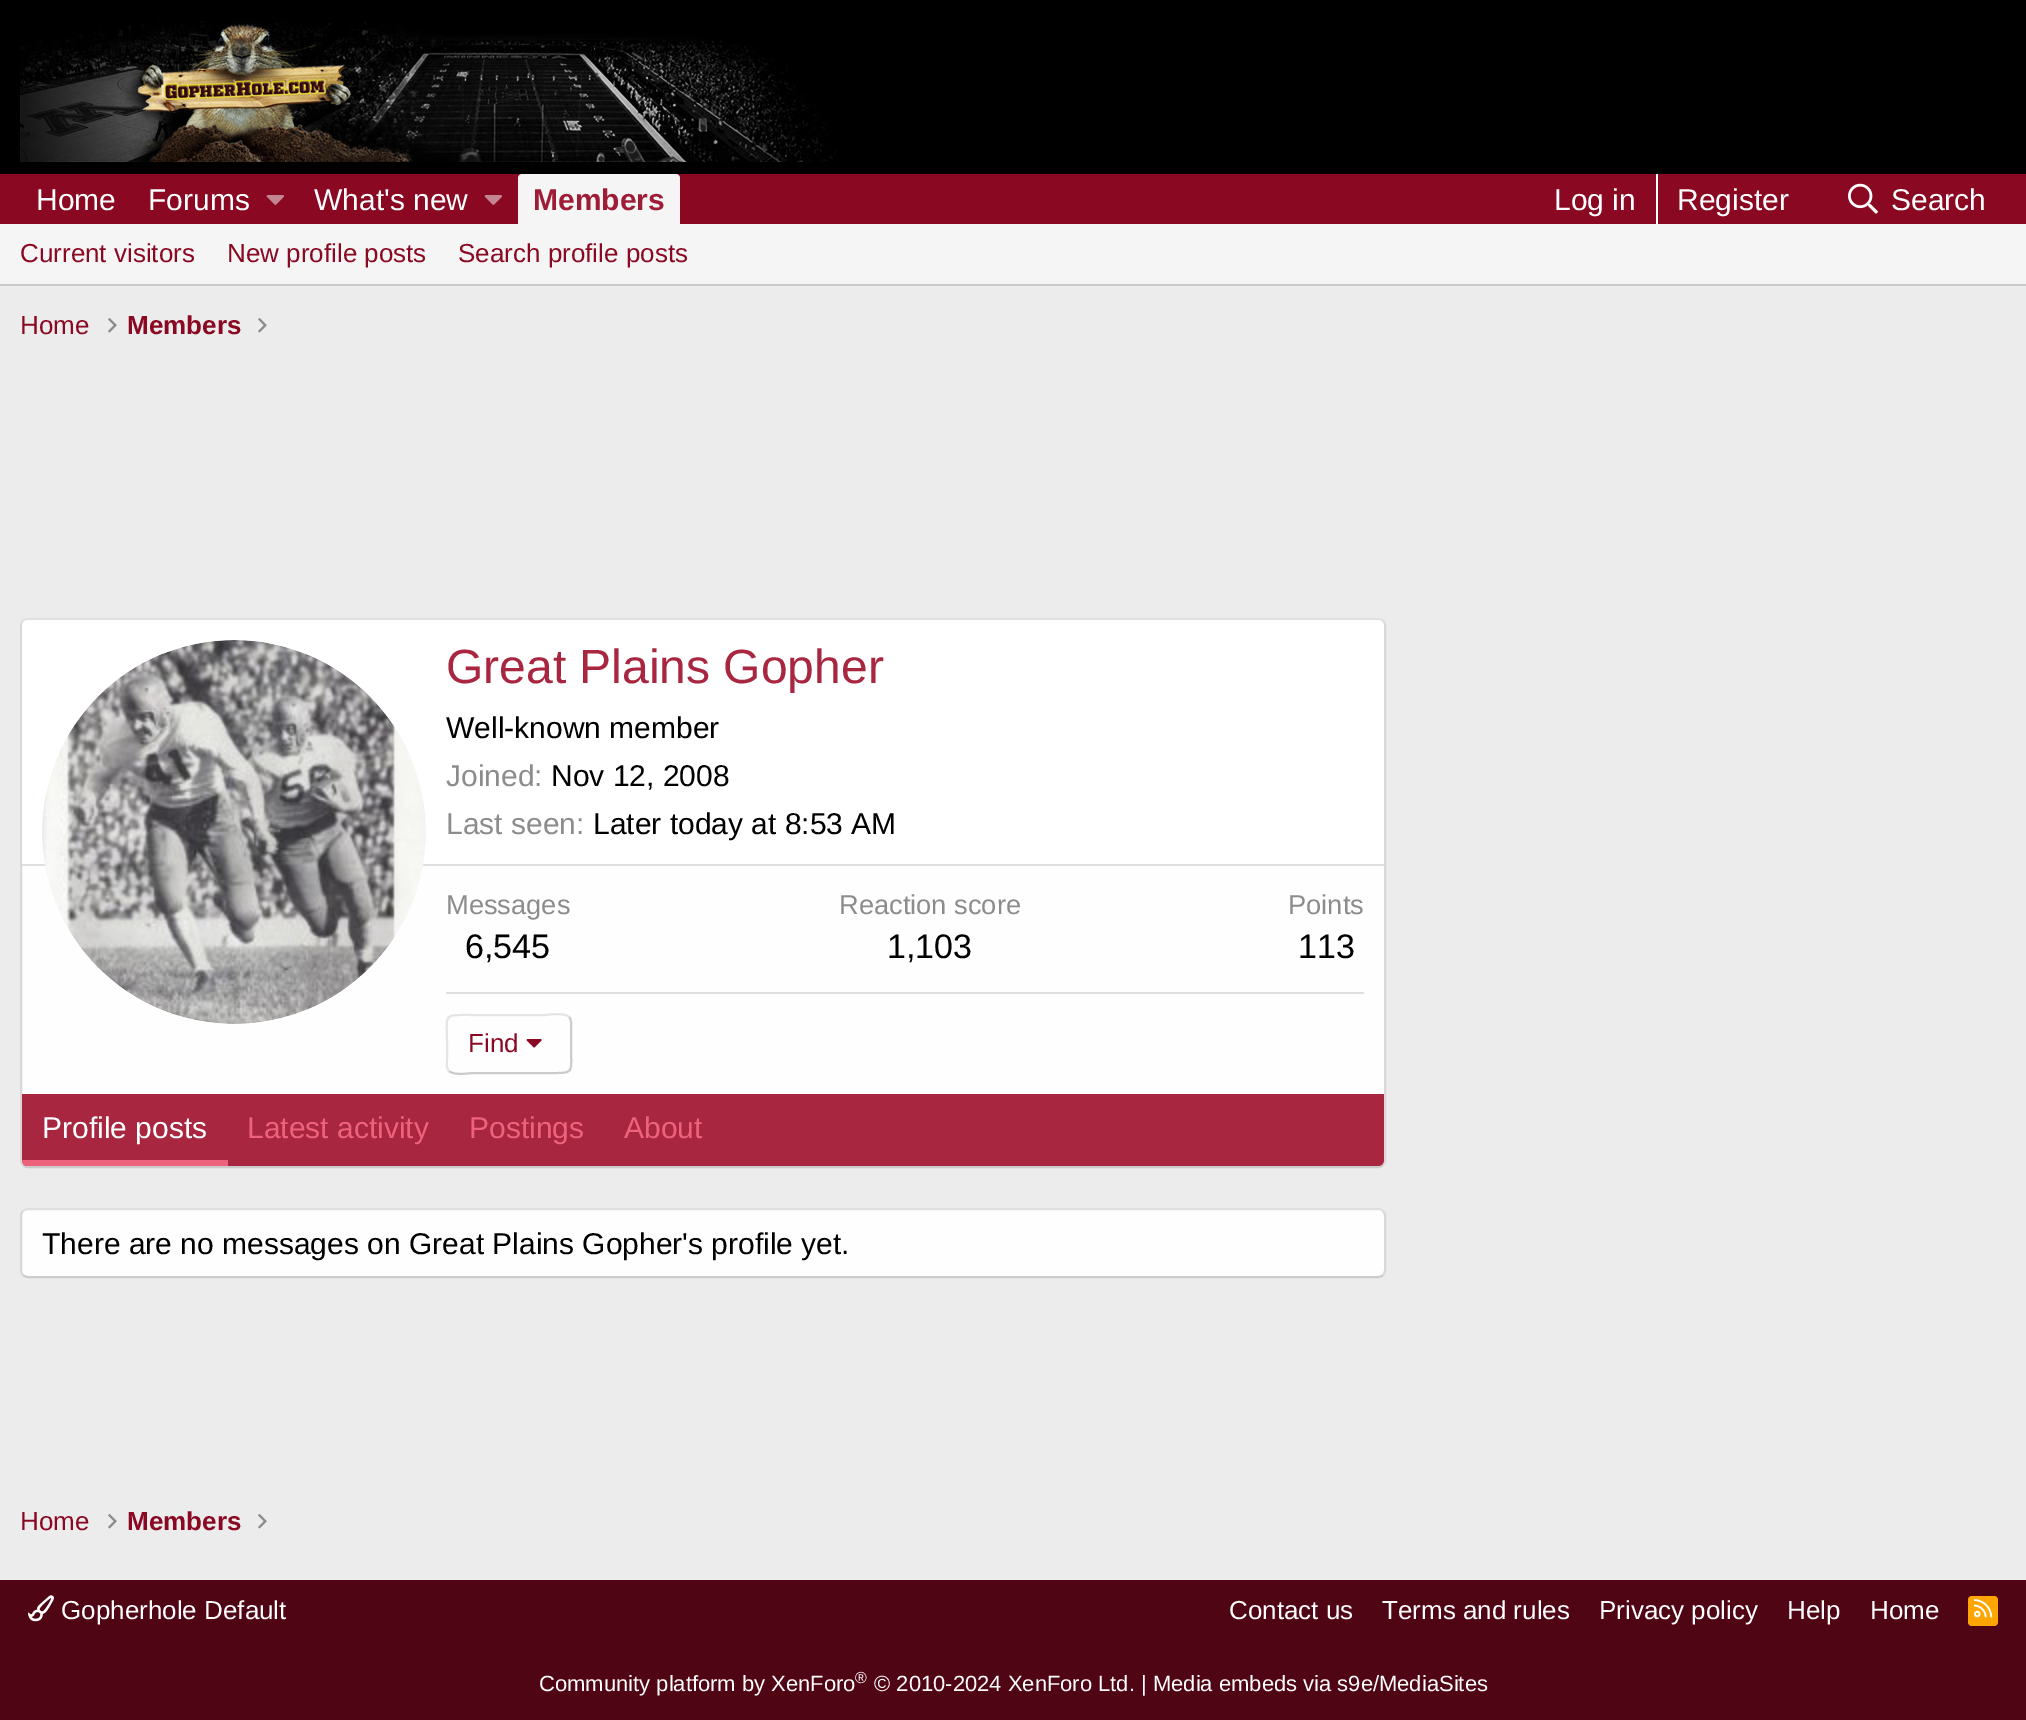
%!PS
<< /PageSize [2026 1720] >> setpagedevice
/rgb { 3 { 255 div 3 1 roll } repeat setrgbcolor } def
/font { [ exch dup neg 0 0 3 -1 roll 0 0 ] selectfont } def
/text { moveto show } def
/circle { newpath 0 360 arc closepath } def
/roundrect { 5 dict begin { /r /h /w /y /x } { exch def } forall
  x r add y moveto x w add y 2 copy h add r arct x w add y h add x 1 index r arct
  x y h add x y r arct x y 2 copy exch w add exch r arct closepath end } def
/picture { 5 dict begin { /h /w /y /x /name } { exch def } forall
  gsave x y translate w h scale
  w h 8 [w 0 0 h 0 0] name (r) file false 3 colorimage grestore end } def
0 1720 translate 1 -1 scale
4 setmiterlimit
236 236 236 rgb
0 0 2026 1720 rectfill
0 0 0 rgb
0 0 2026 174 rectfill
(img_01.rgb) 20 19 816 143 picture
138 8 34 rgb
0 174 2026 50 rectfill
(img_02.rgb) 266 195 18 10 picture
(img_02.rgb) 484 195 18 10 picture
245 245 245 rgb
522 174 moveto 154 0 rlineto 2 0 4 2 4 4 rcurveto 0 46 rlineto -162 0 rlineto 0 -46 rlineto 0 -2 2 -4 4 -4 rcurveto closepath fill
255 255 255 rgb
1656 174 2 50 rectfill
(img_03.rgb) 1848 183 30 31 picture
245 245 245 rgb
0 224 2026 60 rectfill
203 203 203 rgb
0 284 2026 2 rectfill
(img_04.rgb) 108 318 9 15 picture
(img_04.rgb) 258 318 9 15 picture
254 254 254 rgb
20 618 1366 550 8 roundrect fill
223 223 223 rgb
2 setlinewidth
23 621 moveto 1.5 -1.5 3 -2 5 -2 rcurveto 1350 0 rlineto 2 0 3.5 0.5 5 2 rcurveto stroke
216 216 216 rgb
1383 621 moveto 1.5 1.5 2 3 2 5 rcurveto 0 534 rlineto 0 2 -0.5 3.5 -2 5 rcurveto stroke
203 203 203 rgb
1383 1165 moveto -1.5 1.5 -3 2 -5 2 rcurveto -1350 0 rlineto -2 0 -3.5 -0.5 -5 -2 rcurveto stroke
216 216 216 rgb
23 1165 moveto -1.5 -1.5 -2 -3 -2 -5 rcurveto 0 -534 rlineto 0 -2 0.5 -3.5 2 -5 rcurveto stroke
255 255 255 rgb
28 620 moveto 1350 0 rlineto 3.5 0 6 2.5 6 6 rcurveto 0 240 rlineto -1362 0 rlineto 0 -240 rlineto 0 -3.5 2.5 -6 6 -6 rcurveto closepath fill
223 223 223 rgb
22 864 1362 2 rectfill
254 254 254 rgb
234 832 192 circle fill
(img_05.rgb) 42 640 384 384 picture
223 223 223 rgb
446 992 918 2 rectfill
203 203 203 rgb
569 1017 moveto 3 3 2 8.5 2 12.5 rcurveto 0 14.5 rlineto 0 31.5 5 29 -25.5 29 rcurveto -73 0 rlineto -1 0 -18.5 3 -23.5 -2 rcurveto stroke
229 229 229 rgb
449 1071 moveto -3 -3 -2 -8.5 -2 -12.5 rcurveto 0 -14.5 rlineto 0 -31.5 -5 -29 25.5 -29 rcurveto 73 0 rlineto 1 0 18.5 -3 23.5 2 rcurveto stroke
(img_06.rgb) 526 1039 16 9 picture
168 38 64 rgb
22 1094 moveto 1362 0 rlineto 0 66 rlineto 0 3.5 -2.5 6 -6 6 rcurveto -1350 0 rlineto -3.5 0 -6 -2.5 -6 -6 rcurveto closepath fill
238 98 124 rgb
22 1160 moveto 206 0 rlineto 0 6 rlineto -200 0 rlineto -3.5 0 -6 -2.5 -6 -6 rcurveto closepath fill
254 254 254 rgb
20 1208 1366 70 8 roundrect fill
223 223 223 rgb
23 1211 moveto 1.5 -1.5 3 -2 5 -2 rcurveto 1350 0 rlineto 2 0 3.5 0.5 5 2 rcurveto stroke
216 216 216 rgb
1383 1211 moveto 1.5 1.5 2 3 2 5 rcurveto 0 54 rlineto 0 2 -0.5 3.5 -2 5 rcurveto stroke
203 203 203 rgb
1383 1275 moveto -1.5 1.5 -3 2 -5 2 rcurveto -1350 0 rlineto -2 0 -3.5 -0.5 -5 -2 rcurveto stroke
216 216 216 rgb
23 1275 moveto -1.5 -1.5 -2 -3 -2 -5 rcurveto 0 -54 rlineto 0 -2 0.5 -3.5 2 -5 rcurveto stroke
(img_04.rgb) 108 1514 9 15 picture
(img_04.rgb) 258 1514 9 15 picture
80 5 20 rgb
0 1580 2026 140 rectfill
(img_07.rgb) 28 1595 26 27 picture
255 165 0 rgb
1968 1596 30 30 4 roundrect fill
(img_08.rgb) 1974 1599 19 19 picture
/LiberationSans-Regular 30 font
255 255 255 rgb
(Home) 36 210 text
(Forums) 148 210 text
(What's new) 314 210 text
/LiberationSans-Bold 30 font
158 28 54 rgb
(Members) 533 210 text
/LiberationSans-Regular 30 font
255 255 255 rgb
(Log in) 1554 210 text
(Register) 1677 210 text
(Search) 1891 210 text
/LiberationSans-Regular 26 font
138 8 34 rgb
(Current visitors) 20 262 text
(New profile posts) 227 262 text
(Search profile posts) 458 262 text
(Home) 20 334 text
/LiberationSans-Bold 26 font
(Members) 127 334 text
/LiberationSans-Regular 48 font
168 38 64 rgb
(Great Plains Gopher) 446 683 text
/LiberationSans-Regular 30 font
0 0 0 rgb
(Well-known member) 446 738 text
140 140 140 rgb
(Joined:) 446 786 text
0 0 0 rgb
(Nov 12, 2008) 551 786 text
140 140 140 rgb
(Last seen:) 446 834 text
0 0 0 rgb
(Later today at 8:53 AM) 593 834 text
/LiberationSans-Regular 27.25 font
140 140 140 rgb
(Messages) 446 914 text
/LiberationSans-Regular 34 font
0 0 0 rgb
(6,545) 465 958 text
/LiberationSans-Regular 27.25 font
140 140 140 rgb
(Reaction score) 839 914 text
/LiberationSans-Regular 34 font
0 0 0 rgb
(1,103) 887 958 text
/LiberationSans-Regular 27.25 font
140 140 140 rgb
(Points) 1288 914 text
/LiberationSans-Regular 34 font
0 0 0 rgb
(113) 1298 958 text
/LiberationSans-Regular 26 font
138 8 34 rgb
(Find) 468 1052 text
/LiberationSans-Regular 30 font
255 255 255 rgb
(Profile posts) 42 1138 text
238 98 124 rgb
(Latest activity) 247 1138 text
(Postings) 469 1138 text
(About) 624 1138 text
0 0 0 rgb
(There are no messages on Great Plains Gopher's profile yet.) 42 1254 text
/LiberationSans-Regular 26 font
138 8 34 rgb
(Home) 20 1530 text
/LiberationSans-Bold 26 font
(Members) 127 1530 text
/LiberationSans-Regular 26 font
255 255 255 rgb
(Gopherhole Default) 61 1619 text
(Contact us) 1229 1619 text
(Terms and rules) 1382 1619 text
(Privacy policy) 1599 1619 text
(Help) 1787 1619 text
(Home) 1870 1619 text
/LiberationSans-Regular 22 font
(Community platform by XenForo) 539 1691 text
/LiberationSans-Regular 16 font
(®) 855 1683 text
/LiberationSans-Regular 22 font
(© 2010-2024 XenForo Ltd. | Media embeds via s9e/MediaSites) 874 1691 text
showpage
